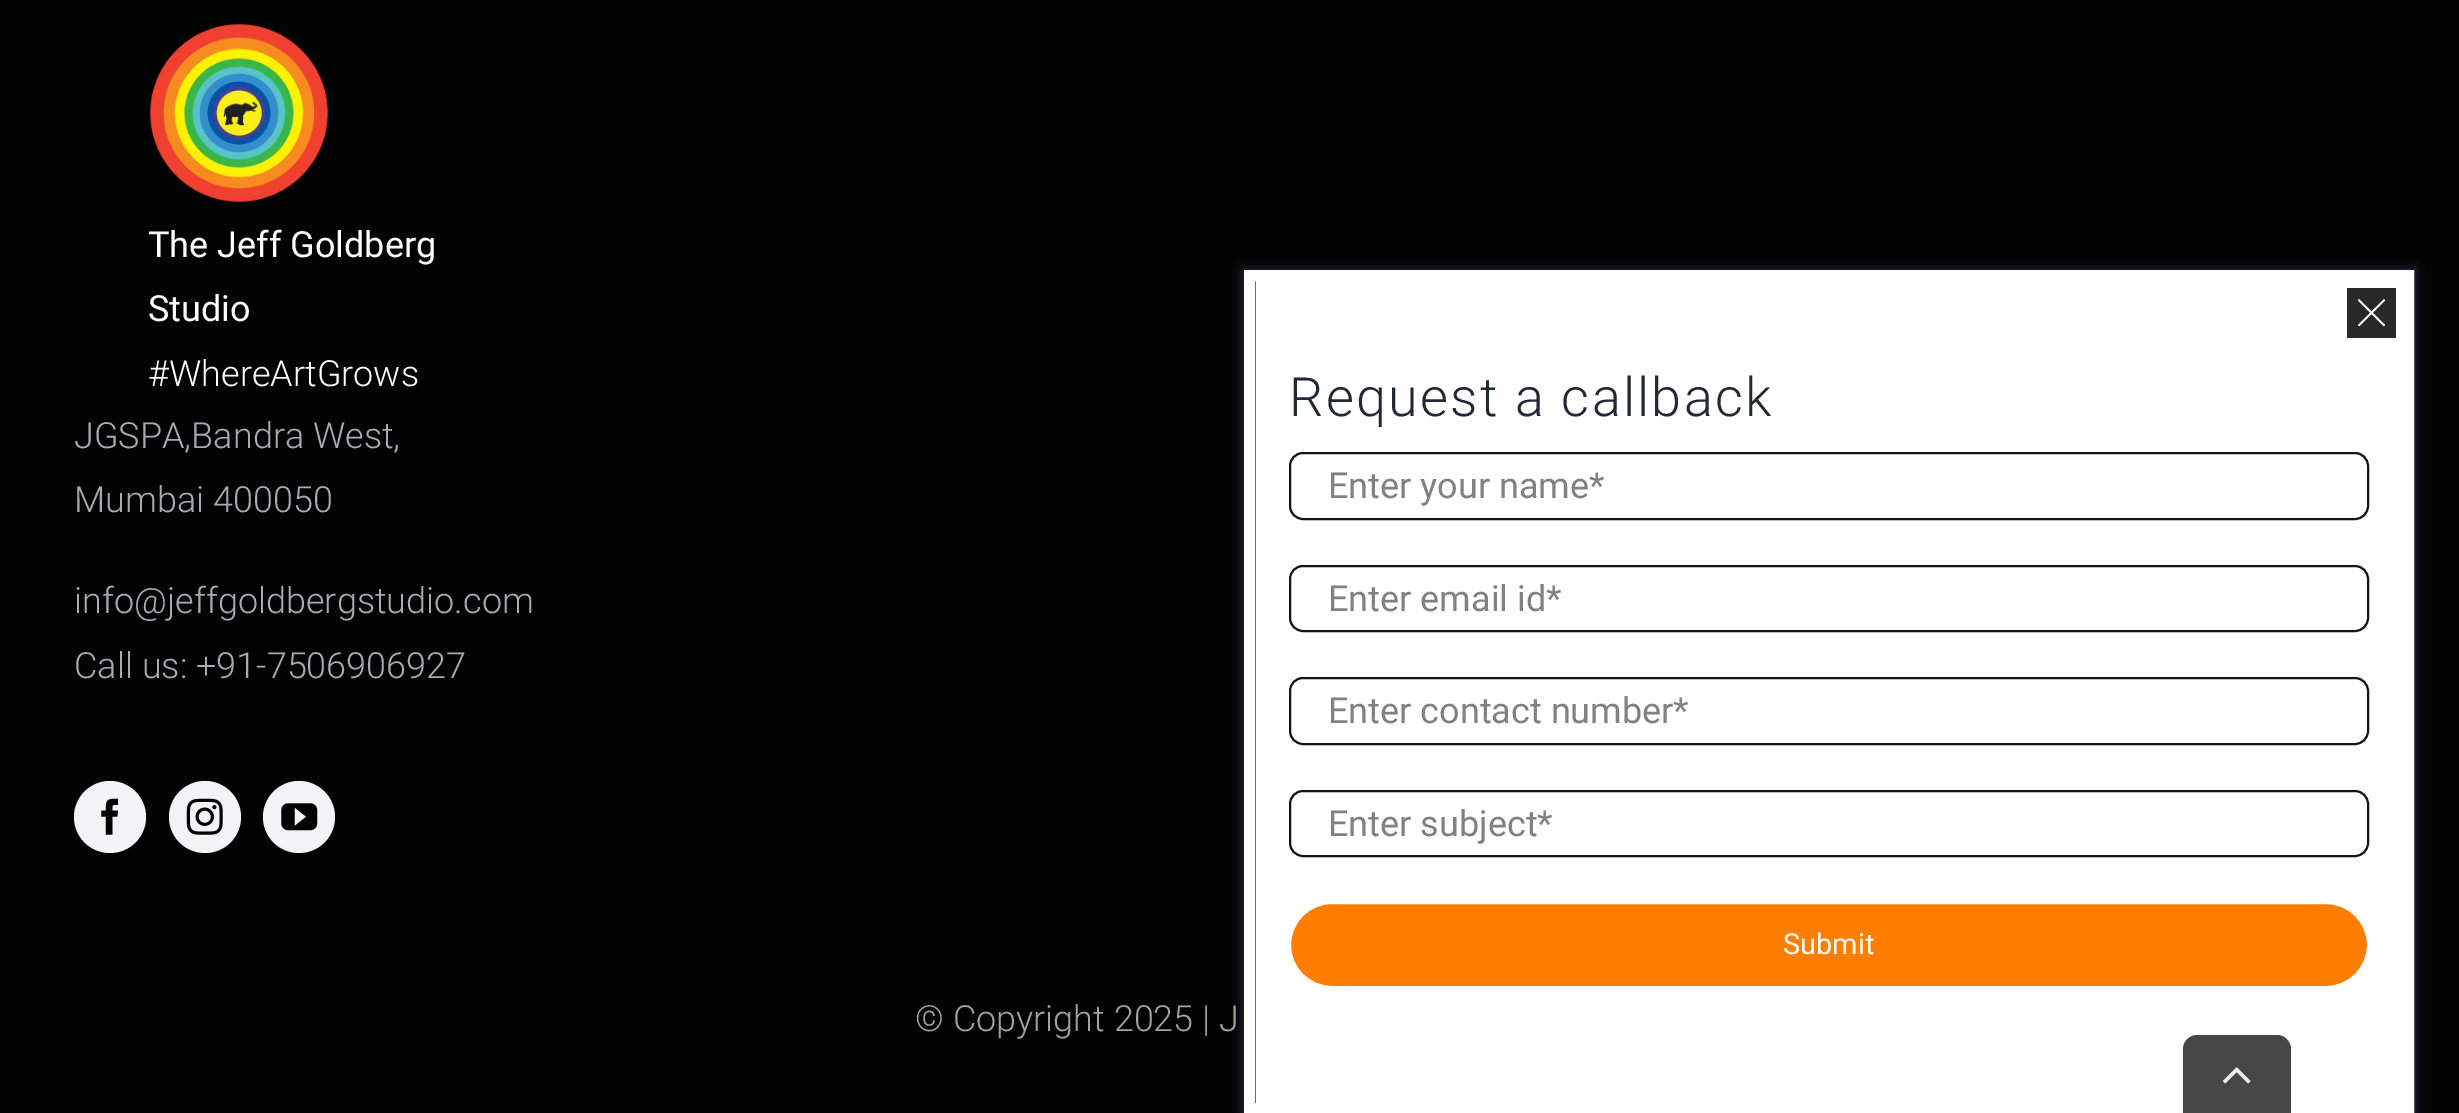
%!PS
<< /PageSize [2459 1113] /PageUsesTransparency true >> setpagedevice
/rgb { 3 { 255 div 3 1 roll } repeat setrgbcolor } def
/font { [ exch dup neg 0 0 3 -1 roll 0 0 ] selectfont } def
/text { moveto show } def
/alpha { dup .setfillconstantalpha .setstrokeconstantalpha } def
/circle { newpath 0 360 arc closepath } def
/roundrect { 5 dict begin { /r /h /w /y /x } { exch def } forall
  x r add y moveto x w add y 2 copy h add r arct x w add y h add x 1 index r arct
  x y h add x y r arct x y 2 copy exch w add exch r arct closepath end } def
/shadow { 12 dict begin { /a /b /q /h /w /y /x } { exch def } forall gsave /was 0 def
  9 -2 -9 { dup b mul 4 div /e exch def 1 sub .425 mul 2.718 exch exp 1 add a .99 .min exch div /now exch def
    1 1 now sub 1 was sub div sub alpha /was now def
    w h .min e 2 mul add 0 gt { x e sub y e sub w e 2 mul add h e 2 mul add
      q e add b .6 mul add w h .min 2 div e add .min 0 .max roundrect fill } if } for grestore end } def
/picture { 5 dict begin { /h /w /y /x /name } { exch def } forall
  gsave x y translate w h scale
  w h 8 [w 0 0 h 0 0] name (r) file false 3 colorimage grestore end } def
0 .pushpdf14devicefilter
0 1113 translate 1 -1 scale
4 setmiterlimit
3 3 3 rgb
0 0 2459 1113 rectfill
(img_01.rgb) 150 24 178 178 picture
242 243 245 rgb
110 817 36 circle fill
(img_02.rgb) 101 798 18 37 picture
205 817 36 circle fill
(img_03.rgb) 186 798 37 37 picture
299 817 36 circle fill
(img_04.rgb) 281 803 37 28 picture
86 86 131 rgb
1244 270 1170 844 0 5.5 0.6 shadow
255 255 255 rgb
11 setlinewidth
1249.5 275.5 1159 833 rectstroke
1256 281 1147 822 rectfill
41 41 41 rgb
2347 288 49 50 rectfill
(img_05.rgb) 2358 299 27 28 picture
20 20 20 rgb
2 setlinewidth
1290 453 1078 66 13 roundrect stroke
1290 566 1078 65 13 roundrect stroke
1290 678 1078 66 13 roundrect stroke
1290 791 1078 65 13 roundrect stroke
255 126 0 rgb
1290 903 1078 84 42 roundrect gsave fill grestore
255 255 255 rgb
stroke
71 71 71 rgb
2197 1035 moveto 80 0 rlineto 7.5 0 14 6.5 14 14 rcurveto 0 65 rlineto -108 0 rlineto 0 -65 rlineto 0 -7.5 6.5 -14 14 -14 rcurveto closepath fill
(img_06.rgb) 2222 1067 29 17 picture
gsave
149 0 moveto 324 0 rlineto 0 374 rlineto 0 25 -20 45 -45 45 rcurveto -234 0 rlineto -25 0 -45 -20 -45 -45 rcurveto closepath clip newpath
/Roboto-Regular 36 font
255 255 255 rgb
(The Jeff Goldberg) 148 257 text
grestore
/Roboto-Regular 36 font
255 255 255 rgb
(Studio) 148 321 text
/Roboto-Light 36 font
(#WhereArtGrows) 148 386 text
168 171 180 rgb
(JGSPA,Bandra West,) 74 448 text
(Mumbai 400050) 74 512 text
(info@jeffgoldbergstudio.com) 74 613 text
(Call us: +91-7506906927) 74 678 text
162 162 162 rgb
(© Copyright 2025 | J) 915 1031 text
/Roboto-Light 54 font
33 41 52 rgb
1289 416 moveto 2.25 0 (Request a callback) ashow
/Roboto-Regular 36 font
129 129 129 rgb
(Enter your name*) 1328 498 text
(Enter email id*) 1328 611 text
(Enter contact number*) 1328 723 text
(Enter subject*) 1328 836 text
/Roboto-Regular 29 font
255 255 255 rgb
(Submit) 1783 954 text
.poppdf14devicefilter showpage
